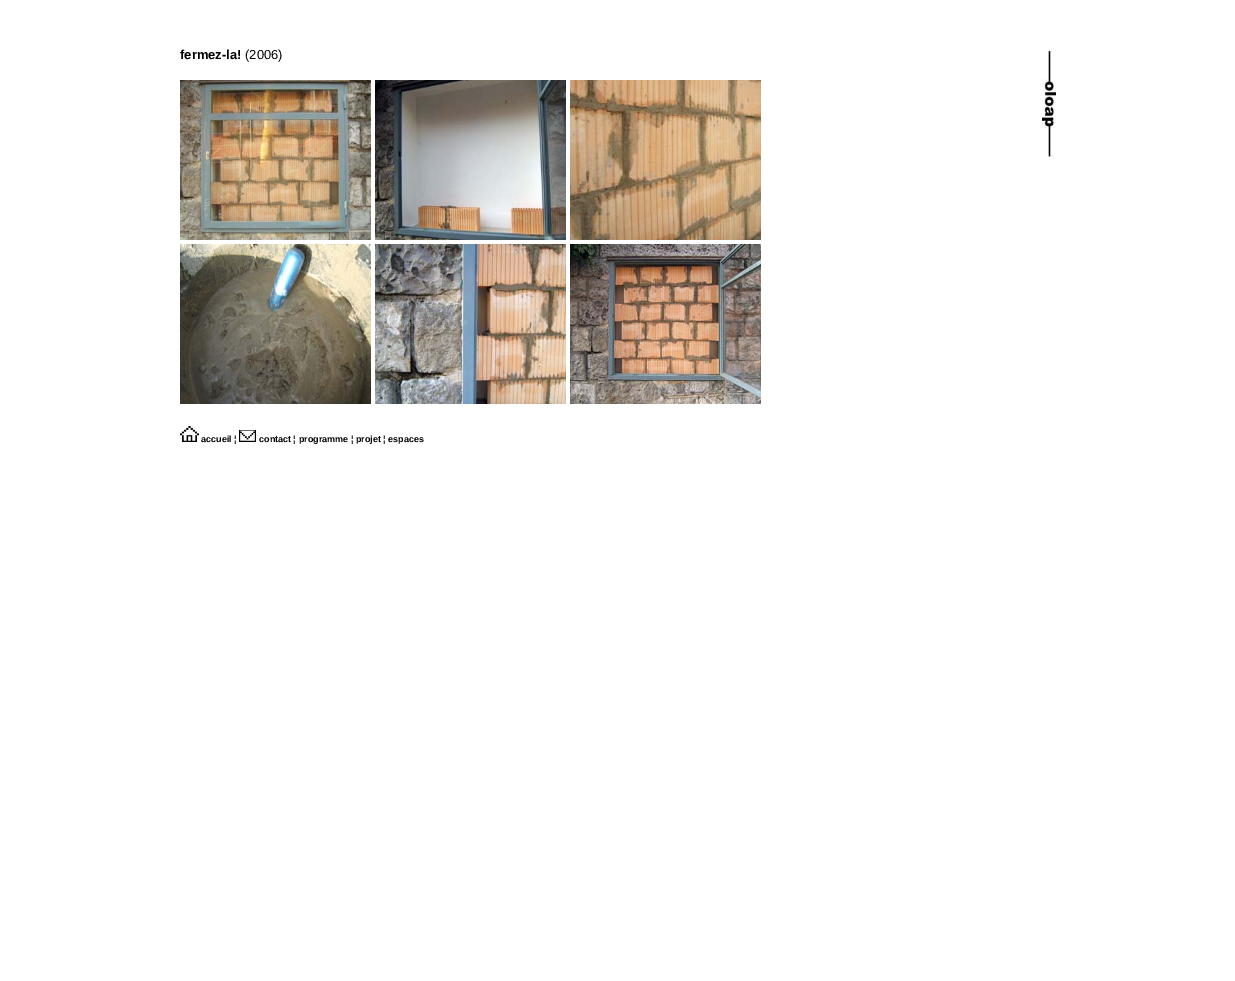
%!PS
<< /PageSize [1235 981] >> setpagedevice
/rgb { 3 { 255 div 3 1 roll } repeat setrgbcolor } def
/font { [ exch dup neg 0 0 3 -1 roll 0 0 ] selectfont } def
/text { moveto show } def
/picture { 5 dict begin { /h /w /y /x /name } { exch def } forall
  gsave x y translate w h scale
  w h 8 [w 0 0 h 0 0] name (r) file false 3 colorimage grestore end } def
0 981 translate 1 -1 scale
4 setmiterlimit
255 255 255 rgb
0 0 1235 981 rectfill
(img_01.rgb) 180 80 191 160 picture
(img_02.rgb) 375 80 191 160 picture
(img_03.rgb) 570 80 191 160 picture
(img_04.rgb) 180 244 191 160 picture
(img_05.rgb) 375 244 191 160 picture
(img_06.rgb) 570 244 191 160 picture
(img_07.rgb) 180 426 19 16 picture
(img_08.rgb) 239 430 17 12 picture
(img_09.rgb) 1042 47 14 110 picture
/LiberationSans-Bold 13 font
0 0 0 rgb
(fermez-la!) 180 59 text
/LiberationSans-Regular 13 font
(\(2006\)) 245 59 text
/LiberationSans-Bold 9 font
(accueil ¦) 201 442 text
(contact ¦ programme ¦ projet ¦ espaces) 259 442 text
showpage
